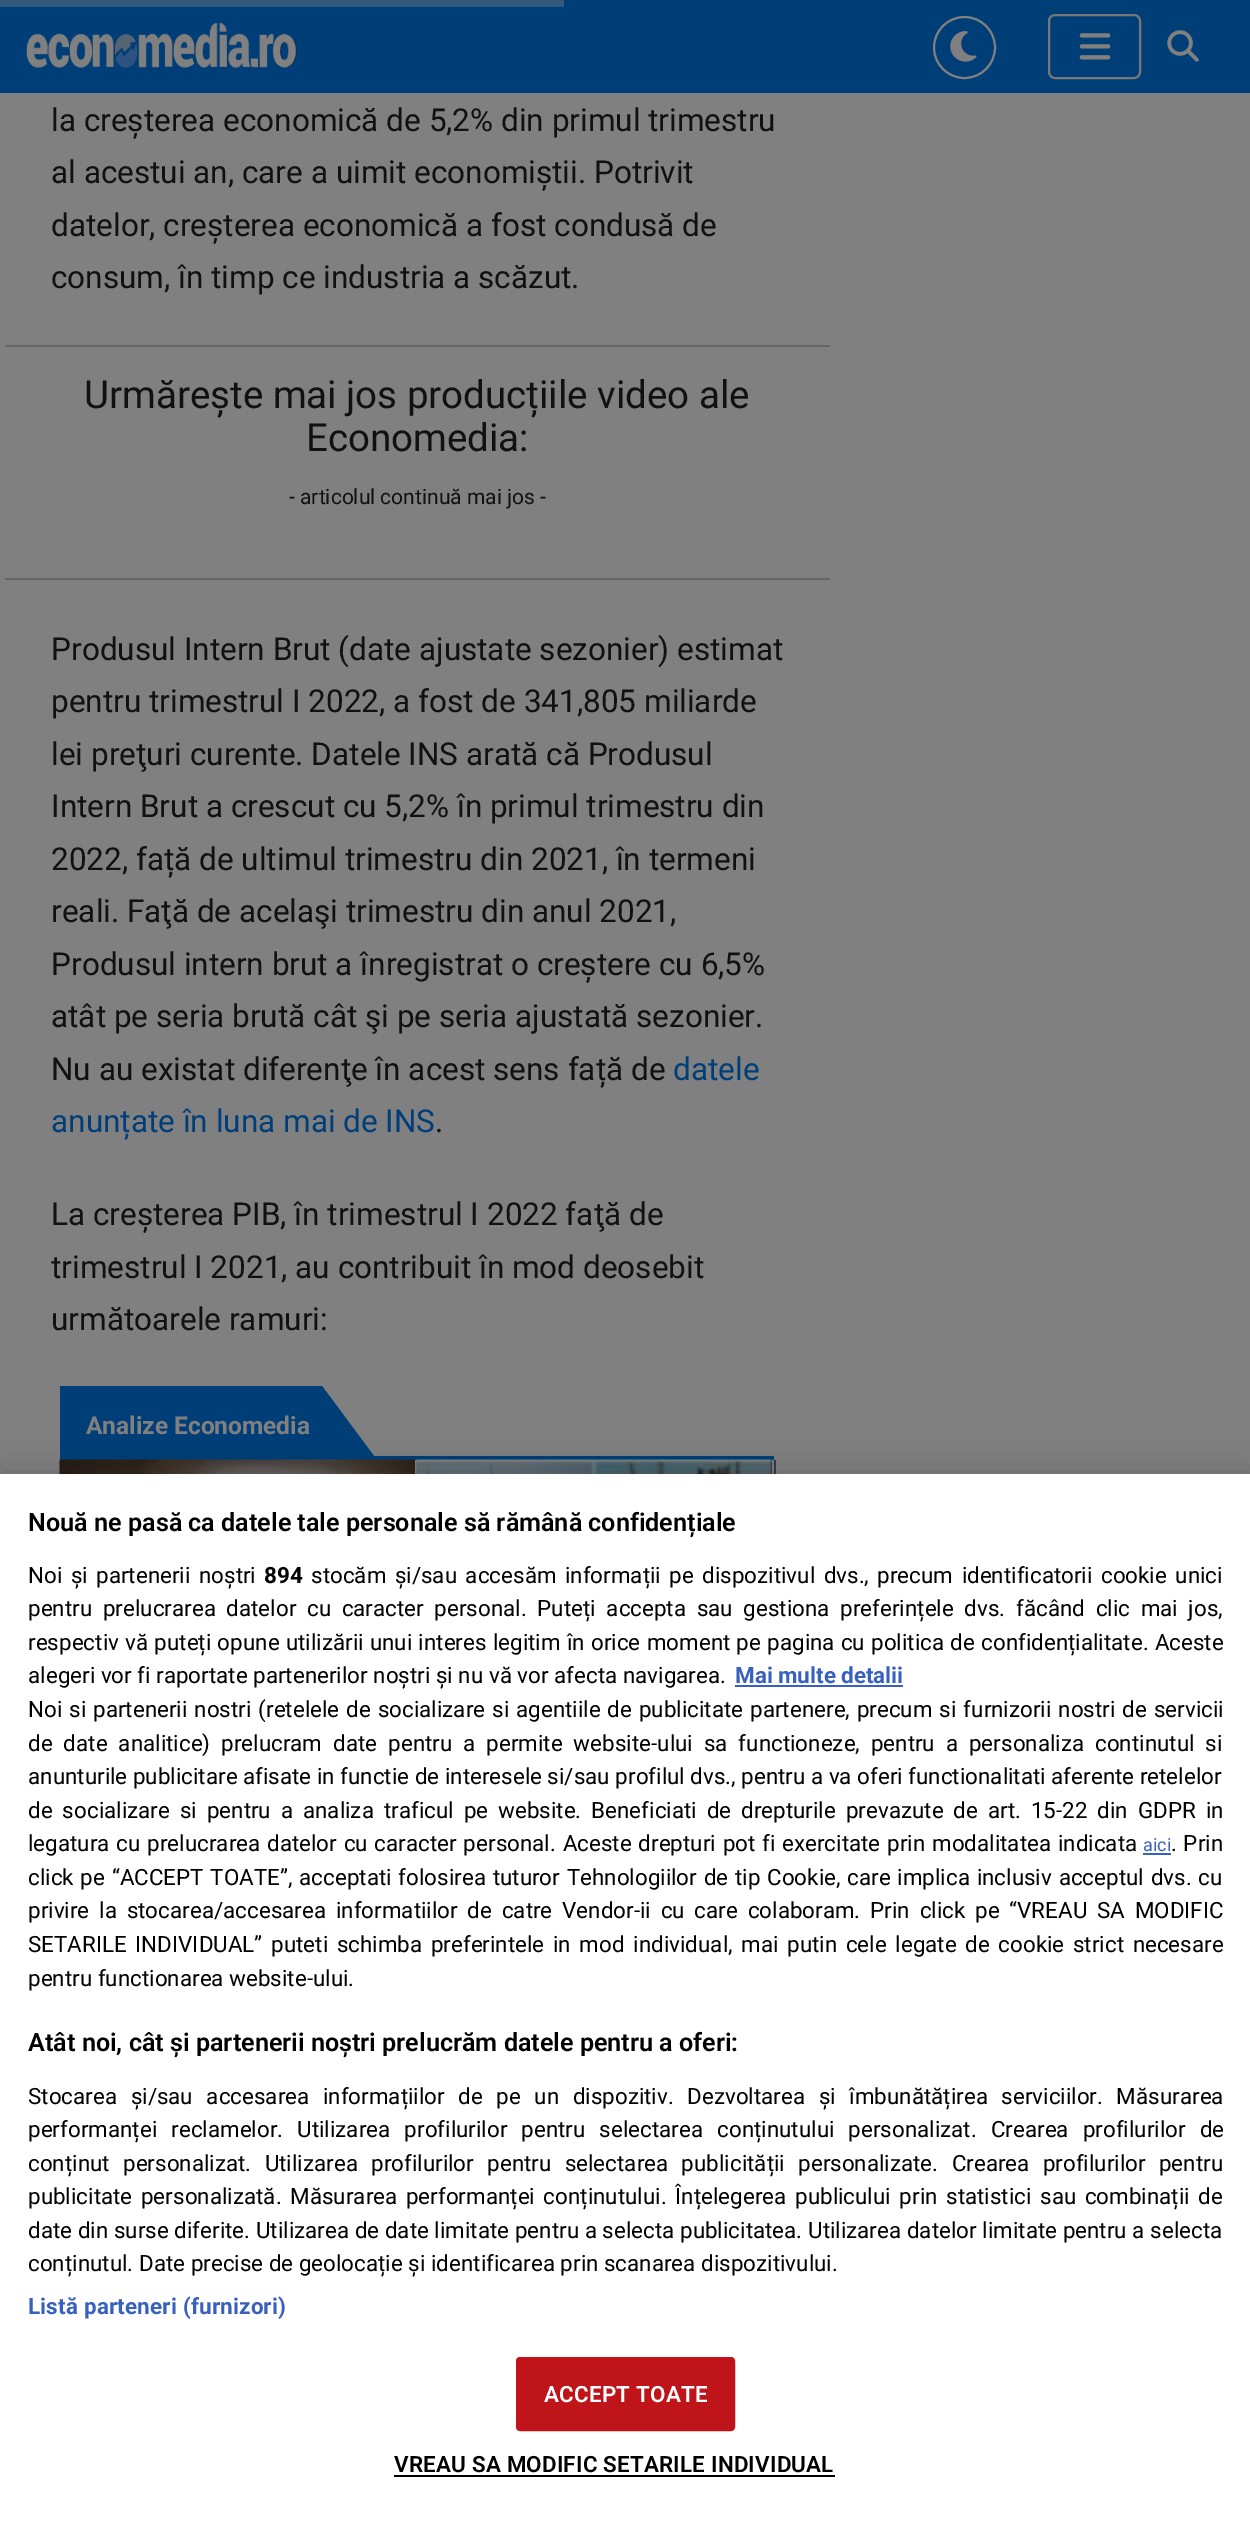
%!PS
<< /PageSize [1250 2526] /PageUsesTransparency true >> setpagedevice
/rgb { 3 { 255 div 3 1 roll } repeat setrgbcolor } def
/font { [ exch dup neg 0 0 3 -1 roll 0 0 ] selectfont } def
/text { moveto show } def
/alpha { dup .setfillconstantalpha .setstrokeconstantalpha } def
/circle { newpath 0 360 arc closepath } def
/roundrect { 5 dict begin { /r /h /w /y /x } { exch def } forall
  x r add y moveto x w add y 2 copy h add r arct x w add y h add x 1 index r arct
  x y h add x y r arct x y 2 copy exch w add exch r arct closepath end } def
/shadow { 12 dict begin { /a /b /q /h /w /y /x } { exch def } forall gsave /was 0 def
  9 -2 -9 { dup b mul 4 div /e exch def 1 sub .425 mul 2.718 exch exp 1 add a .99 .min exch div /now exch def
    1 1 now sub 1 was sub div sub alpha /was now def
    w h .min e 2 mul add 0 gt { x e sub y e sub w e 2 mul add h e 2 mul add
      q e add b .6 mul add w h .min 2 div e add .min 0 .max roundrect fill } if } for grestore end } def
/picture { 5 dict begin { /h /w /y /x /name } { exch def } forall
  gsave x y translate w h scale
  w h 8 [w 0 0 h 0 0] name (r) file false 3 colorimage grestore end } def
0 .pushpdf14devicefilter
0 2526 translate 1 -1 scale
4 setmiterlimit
128 128 128 rgb
0 0 1250 2526 rectfill
0 62 120 rgb
0 0 1250 93 rectfill
(img_01.rgb) 26 22 271 47 picture
128 128 128 rgb
2 setlinewidth
964.5 47.5 30.5 circle stroke
(img_02.rgb) 950 31 27 31 picture
119 119 119 rgb
1049 15 91 63 6 roundrect stroke
(img_03.rgb) 1079 33 32 27 picture
(img_04.rgb) 1167 30 32 32 picture
51 88 123 rgb
0 0 564 7 rectfill
102 102 102 rgb
5 345 825 2 rectfill
5 578 825 2 rectfill
0 62 120 rgb
60 1456 714 4 rectfill
60 1386 262 70 rectfill
322 1456 moveto 0 -70 rlineto 52 70 rlineto closepath fill
(img_05.rgb) 59 1459 356 15 picture
26 26 26 rgb
770 1460 2 14 rectfill
(img_06.rgb) 416 1459 356 15 picture
(img_07.rgb) 774 1460 2 14 picture
0 0 0 rgb
0 1474 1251 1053 0 16 0.2 shadow
255 255 255 rgb
0 1474 1250 1052 rectfill
56 96 190 rgb
735 1685 168 2 rectfill
1143 1853 28 2 rectfill
191 20 26 rgb
517 2358 217 72 3 roundrect gsave fill grestore
stroke
0 0 0 rgb
394 2475 441 2 rectfill
/Roboto-Regular 31.5 font
17 17 17 rgb
(la creșterea economică de 5,2% din primul trimestru) 51 131 text
(al acestui an, care a uimit economiștii. Potrivit) 51 183 text
(datelor, creșterea economică a fost condusă de) 51 236 text
(consum, în timp ce industria a scăzut.) 51 288 text
/Roboto-Regular 38.5 font
(Urmărește mai jos producțiile video ale) 84 408 text
(Economedia:) 306 451 text
/Roboto-Regular 21 font
(- articolul continuă mai jos -) 289 504 text
/Roboto-Regular 31.5 font
(Produsul Intern Brut \(date ajustate sezonier\) estimat) 51 660 text
(pentru trimestrul I 2022, a fost de 341,805 miliarde) 51 712 text
(lei preţuri curente. Datele INS arată că Produsul) 51 765 text
(Intern Brut a crescut cu 5,2% în primul trimestru din) 51 817 text
(2022, față de ultimul trimestru din 2021, în termeni) 51 870 text
(reali. Faţă de acelaşi trimestru din anul 2021,) 51 922 text
(Produsul intern brut a înregistrat o creștere cu 6,5%) 51 975 text
(atât pe seria brută cât şi pe seria ajustată sezonier.) 51 1027 text
(Nu au existat diferenţe în acest sens față de) 51 1080 text
0 62 120 rgb
(datele) 673 1080 text
(anunțate în luna mai de INS) 51 1132 text
17 17 17 rgb
(.) 435 1132 text
(La creșterea PIB, în trimestrul I 2022 faţă de) 51 1225 text
(trimestrul I 2021, au contribuit în mod deosebit) 51 1278 text
(următoarele ramuri:) 51 1330 text
/Roboto-Bold 24.5 font
128 128 128 rgb
(Analize Economedia) 86 1434 text
/Roboto-SemiBold 25.2 font
0 0 0 rgb
(Nouă ne pasă ca datele tale personale să rămână confidențiale) 28 1531 text
/Roboto-Regular 22.4 font
28 1583 moveto 2.9 0 32 (Noi și partenerii noștri) widthshow
/Roboto-Bold 22.4 font
(894) 264 1583 text
/Roboto-Regular 22.4 font
311 1583 moveto 2.9 0 32 (stocăm și/sau accesăm informații pe dispozitivul dvs., precum identificatorii cookie unici) widthshow
28 1616 moveto 5.1 0 32 (pentru prelucrarea datelor cu caracter personal. Puteți accepta sau gestiona preferințele dvs. făcând clic mai jos,) widthshow
28 1650 moveto 0.7 0 32 (respectiv vă puteți opune utilizării unui interes legitim în orice moment pe pagina cu politica de confidențialitate. Aceste) widthshow
(alegeri vor fi raportate partenerilor noștri și nu vă vor afecta navigarea.) 28 1683 text
/Roboto-Bold 22.4 font
56 96 190 rgb
(Mai multe detalii) 735 1683 text
/Roboto-Regular 22.4 font
0 0 0 rgb
28 1717 moveto 1.4 0 32 (Noi si partenerii nostri \(retelele de socializare si agentiile de publicitate partenere, precum si furnizorii nostri de servicii) widthshow
28 1751 moveto 5.4 0 32 (de date analitice\) prelucram date pentru a permite website-ului sa functioneze, pentru a personaliza continutul si) widthshow
(anunturile publicitare afisate in functie de interesele si/sau profilul dvs., pentru a va oferi functionalitati aferente retelelor) 28 1784 text
28 1818 moveto 4.4 0 32 (de socializare si pentru a analiza traficul pe website. Beneficiati de drepturile prevazute de art. 15-22 din GDPR in) widthshow
28 1851 moveto 1.25 0 32 (legatura cu prelucrarea datelor cu caracter personal. Aceste drepturi pot fi exercitate prin modalitatea indicata) widthshow
/Roboto-Regular 18 font
56 96 190 rgb
(aici) 1143 1851 text
/Roboto-Regular 22.4 font
0 0 0 rgb
1171 1851 moveto 1 0 32 (. Prin) widthshow
28 1885 moveto 1.25 0 32 (click pe “ACCEPT TOATE”, acceptati folosirea tuturor Tehnologiilor de tip Cookie, care implica inclusiv acceptul dvs. cu) widthshow
28 1918 moveto 4.25 0 32 (privire la stocarea/accesarea informatiilor de catre Vendor-ii cu care colaboram. Prin click pe “VREAU SA MODIFIC) widthshow
28 1952 moveto 3.1 0 32 (SETARILE INDIVIDUAL” puteti schimba preferintele in mod individual, mai putin cele legate de cookie strict necesare) widthshow
(pentru functionarea website-ului.) 28 1986 text
/Roboto-SemiBold 25.2 font
(Atât noi, cât și partenerii noștri prelucrăm datele pentru a oferi:) 28 2051 text
/Roboto-Regular 22.4 font
28 2104 moveto 8 0 32 (Stocarea și/sau accesarea informațiilor de pe un dispozitiv. Dezvoltarea și îmbunătățirea serviciilor. Măsurarea) widthshow
28 2137 moveto 8.5 0 32 (performanței reclamelor. Utilizarea profilurilor pentru selectarea conținutului personalizat. Crearea profilurilor de) widthshow
28 2171 moveto 7.75 0 32 (conținut personalizat. Utilizarea profilurilor pentru selectarea publicității personalizate. Crearea profilurilor pentru) widthshow
28 2204 moveto 3.1 0 32 (publicitate personalizată. Măsurarea performanței conținutului. Înțelegerea publicului prin statistici sau combinații de) widthshow
28 2238 moveto 0.1 0 32 (date din surse diferite. Utilizarea de date limitate pentru a selecta publicitatea. Utilizarea datelor limitate pentru a selecta) widthshow
(conținutul. Date precise de geolocație și identificarea prin scanarea dispozitivului.) 28 2271 text
/Roboto-Bold 22.4 font
56 96 190 rgb
28 2314 moveto 0.2 0 (Listă parteneri \(furnizori\)) ashow
/Roboto-SemiBold 22.4 font
255 255 255 rgb
544 2402 moveto 0.2 0 (ACCEPT TOATE) ashow
0 0 0 rgb
394 2472 moveto 0.2 0 (VREAU SA MODIFIC SETARILE INDIVIDUAL) ashow
.poppdf14devicefilter showpage
